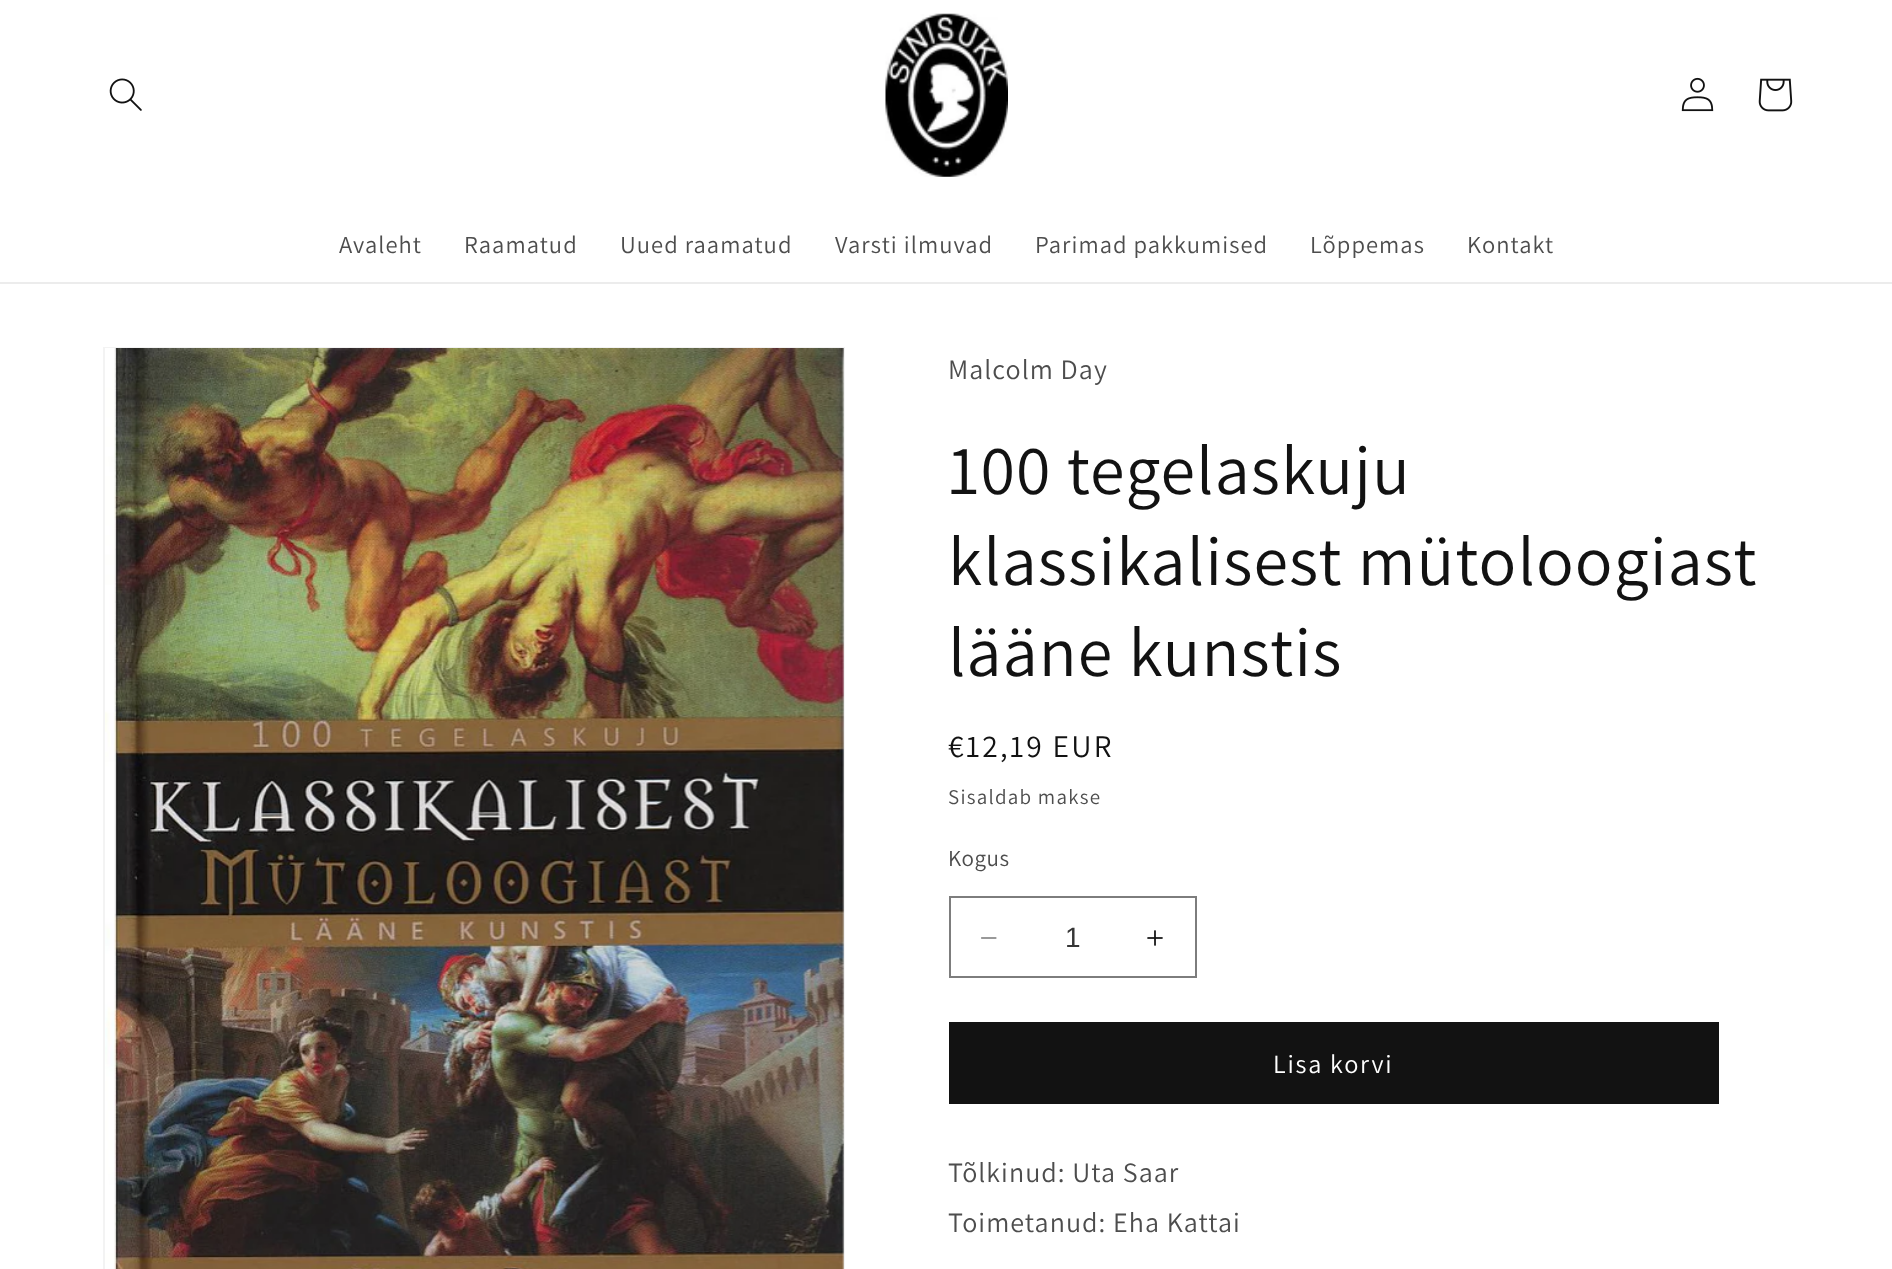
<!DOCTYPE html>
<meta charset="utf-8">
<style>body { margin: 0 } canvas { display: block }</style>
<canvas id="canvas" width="1892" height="1269"></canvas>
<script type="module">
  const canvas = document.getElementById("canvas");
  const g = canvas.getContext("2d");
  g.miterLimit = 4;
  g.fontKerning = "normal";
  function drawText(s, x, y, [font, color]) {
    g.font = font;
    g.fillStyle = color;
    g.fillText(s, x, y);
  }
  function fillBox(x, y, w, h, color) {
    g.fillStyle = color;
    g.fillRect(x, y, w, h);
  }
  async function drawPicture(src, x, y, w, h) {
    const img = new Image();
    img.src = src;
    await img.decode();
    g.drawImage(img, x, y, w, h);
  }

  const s1 = ["24.5px Assistant", "#4D4D4D"];
  const s2 = ["28px Assistant", "#4D4D4D"];
  const s3 = ["70px Assistant", "#121212"];
  const s4 = ["31.5px Assistant", "#121212"];
  const s5 = ["21px Assistant", "#4D4D4D"];
  const s6 = ["23px Assistant", "#4D4D4D"];
  const s7 = ["28px Liberation Sans", "#363636"];
  const s8 = ["26.25px Assistant", "#FFFFFF"];

  fillBox(0, 0, 1892, 1269, "#FFFFFF");
  fillBox(0, 282, 1892, 2, "#ECECEC");
  await drawPicture("pic1.png", 109, 78, 33, 33);
  await drawPicture("pic2.png", 885, 13, 123, 164);
  await drawPicture("pic3.png", 1681, 77, 33, 35);
  await drawPicture("pic4.png", 1758, 78, 35, 34);
  g.letterSpacing = "1.05px";
  drawText("Avaleht", 339, 253, s1);
  drawText("Raamatud", 464, 253, s1);
  drawText("Uued raamatud", 620, 253, s1);
  drawText("Varsti ilmuvad", 835, 253, s1);
  drawText("Parimad pakkumised", 1035, 253, s1);
  drawText("Lõppemas", 1310, 253, s1);
  drawText("Kontakt", 1467, 253, s1);
  g.strokeStyle = "#F3F3F3";
  g.lineWidth = 2;
  g.strokeRect(104, 348, 740, 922);
  await drawPicture("pic5.png", 105, 348, 739, 921);
  drawText("Malcolm Day", 948, 379, s2);
  drawText("100 tegelaskuju", 948, 494, s3);
  drawText("klassikalisest mütoloogiast", 948, 585, s3);
  drawText("lääne kunstis", 948, 676, s3);
  g.letterSpacing = "2.25px";
  drawText("€12,19 EUR", 948, 757, s4);
  g.letterSpacing = "1.25px";
  drawText("Sisaldab makse", 948, 804, s5);
  g.letterSpacing = "0.5px";
  drawText("Kogus", 948, 866, s6);
  await drawPicture("pic6.png", 981, 937, 16, 2);
  await drawPicture("pic7.png", 1147, 930, 16, 16);
  g.strokeStyle = "#7D7D7D";
  g.strokeRect(950, 897, 246, 80);
  g.letterSpacing = "0px";
  drawText("1", 1065, 947, s7);
  fillBox(949, 1022, 770, 82, "#121212");
  g.letterSpacing = "1.75px";
  drawText("Lisa korvi", 1273, 1073, s8);
  g.letterSpacing = "1.05px";
  drawText("Tõlkinud: Uta Saar", 948, 1182, s2);
  drawText("Toimetanud: Eha Kattai", 948, 1232, s2);
</script>
